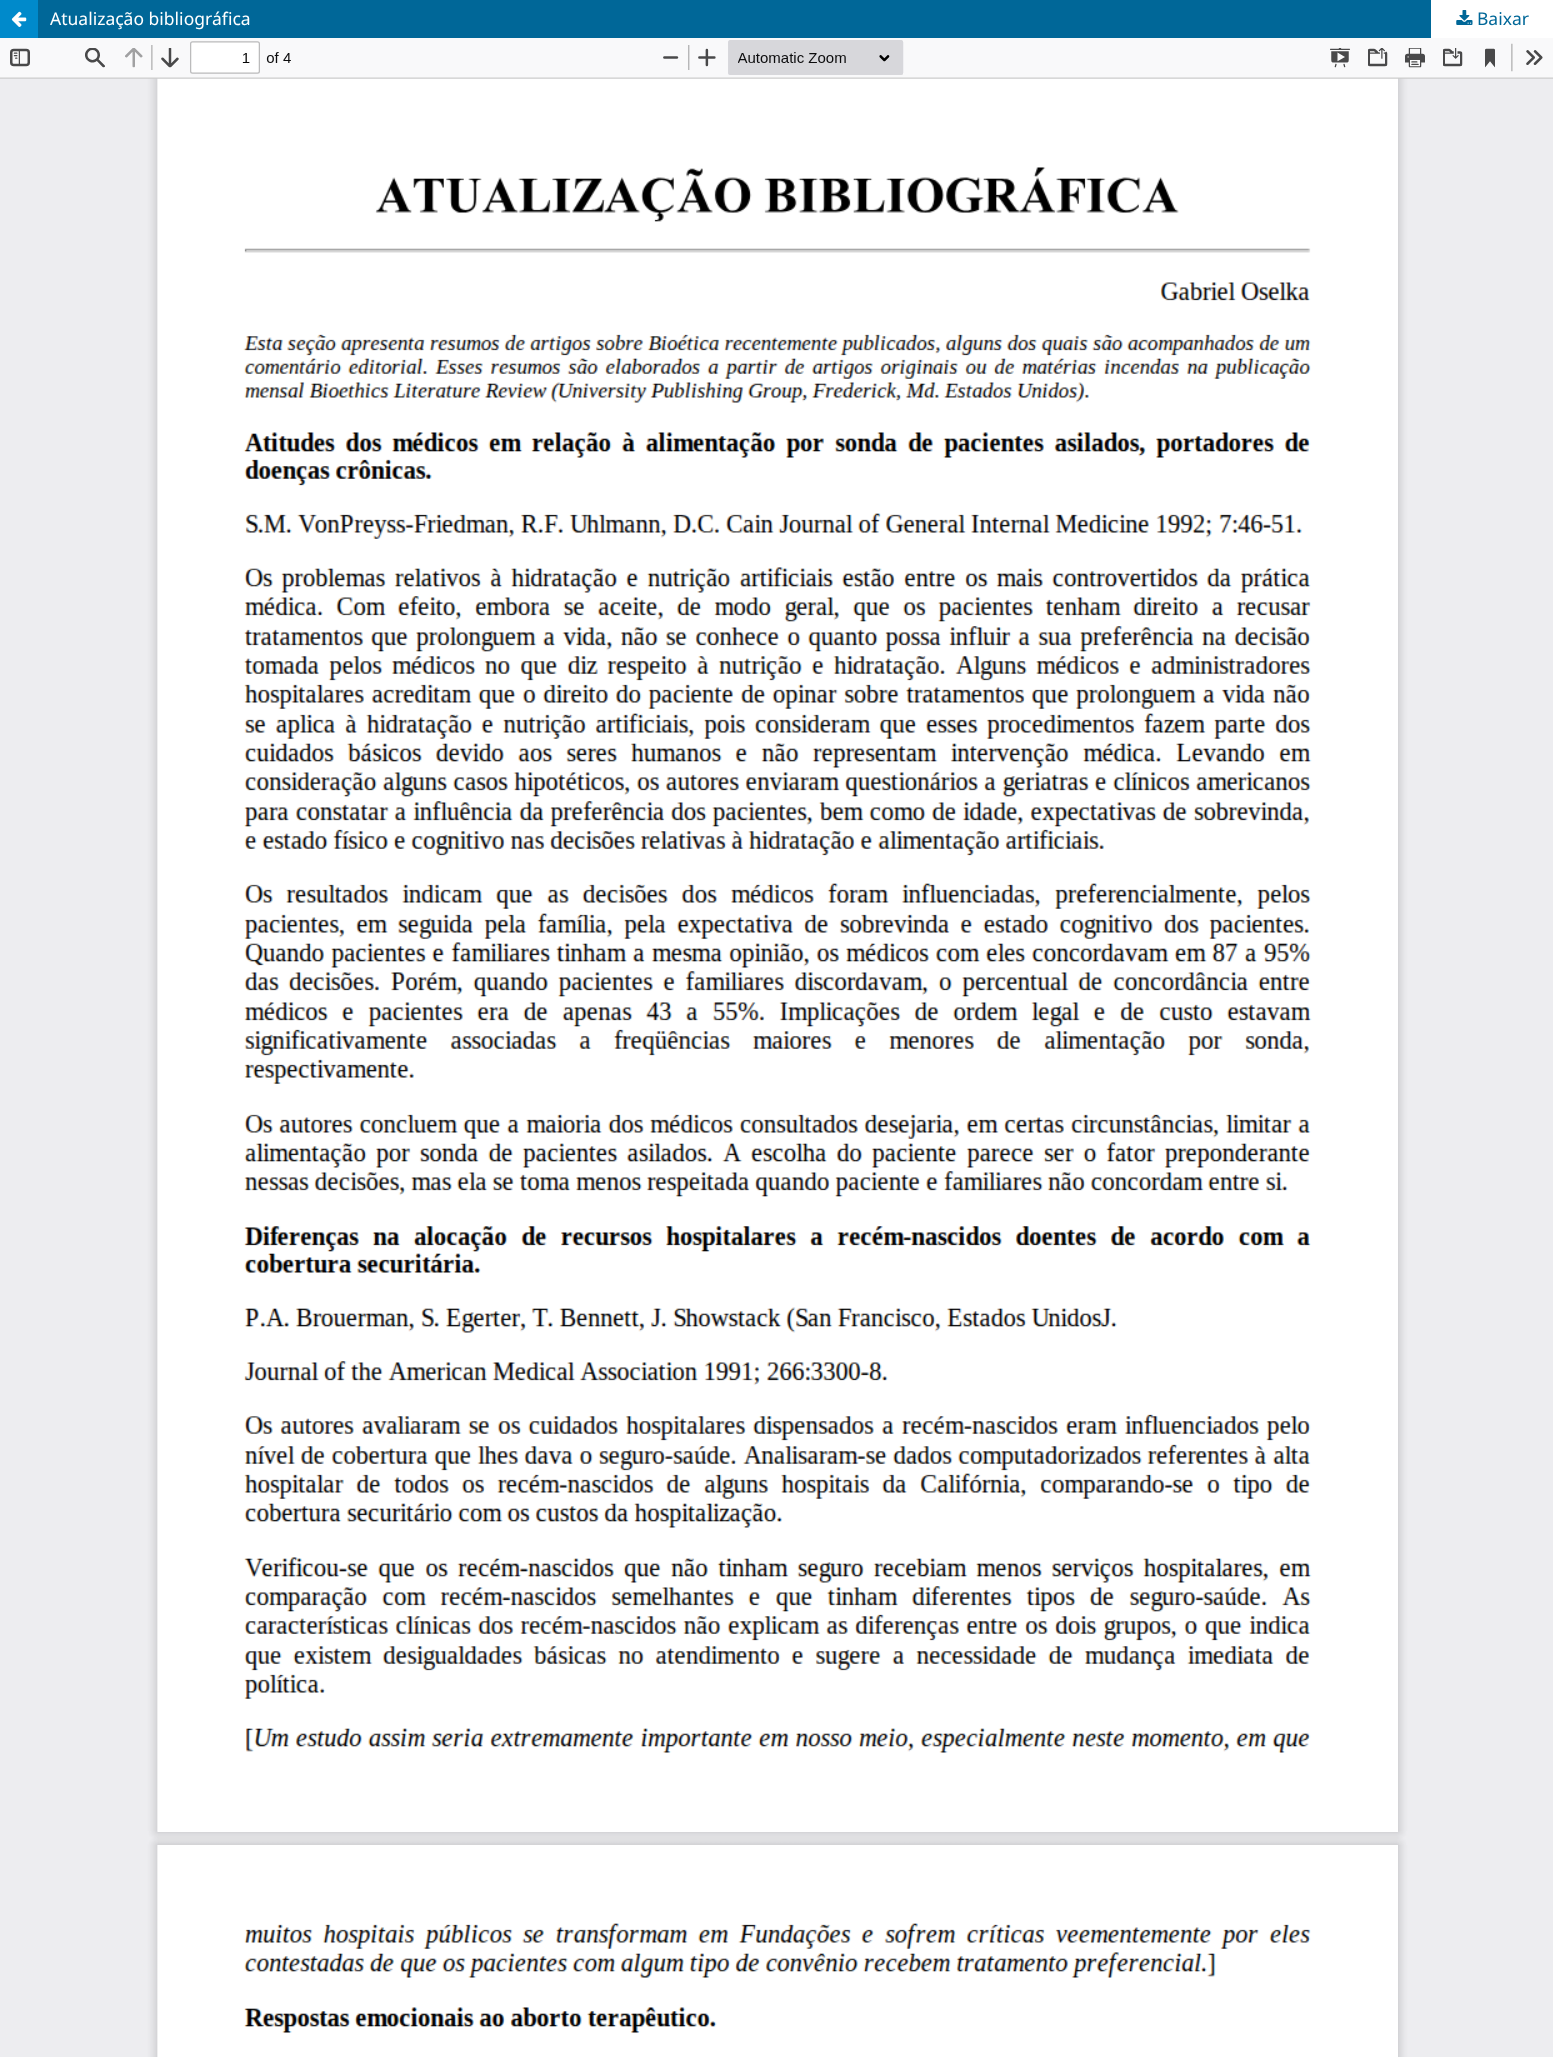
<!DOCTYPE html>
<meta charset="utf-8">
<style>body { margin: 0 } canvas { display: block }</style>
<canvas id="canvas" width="1553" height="2057"></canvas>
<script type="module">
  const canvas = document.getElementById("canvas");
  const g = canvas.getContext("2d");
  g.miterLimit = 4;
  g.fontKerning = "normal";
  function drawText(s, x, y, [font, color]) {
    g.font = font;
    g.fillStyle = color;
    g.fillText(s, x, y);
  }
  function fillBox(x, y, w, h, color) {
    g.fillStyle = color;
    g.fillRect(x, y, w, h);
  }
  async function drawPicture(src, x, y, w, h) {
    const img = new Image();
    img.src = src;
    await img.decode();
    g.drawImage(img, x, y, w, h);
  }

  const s1 = ["17.5px Noto Sans", "#FFFFFF"];
  const s2 = ["17.5px Noto Sans", "#006798"];

  fillBox(0, 0, 1553, 2057, "#FFFFFF");
  fillBox(38, 0, 1393, 38, "#006798");
  fillBox(0, 0, 38, 38, "#008ACB");
  await drawPicture("pic1.png", 11, 11, 16, 16);
  drawText("Atualização bibliográfica", 50, 25, s1);
  await drawPicture("pic2.png", 1456, 10, 17, 15);
  drawText("Baixar", 1477, 25, s2);
  await drawPicture("pic3.png", 0, 38, 1553, 2019);
</script>
